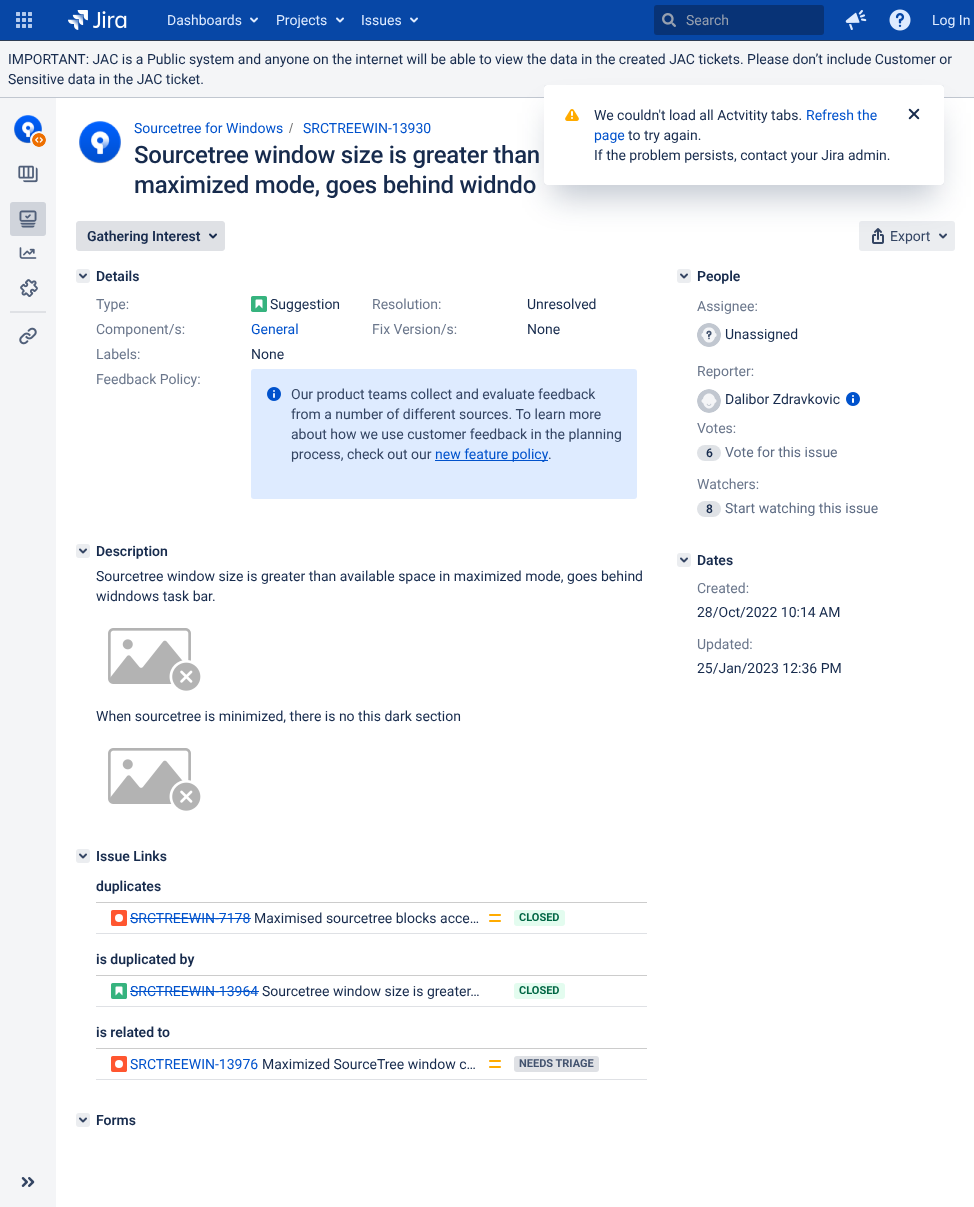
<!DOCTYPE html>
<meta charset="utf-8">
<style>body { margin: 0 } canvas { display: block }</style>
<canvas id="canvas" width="974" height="1207"></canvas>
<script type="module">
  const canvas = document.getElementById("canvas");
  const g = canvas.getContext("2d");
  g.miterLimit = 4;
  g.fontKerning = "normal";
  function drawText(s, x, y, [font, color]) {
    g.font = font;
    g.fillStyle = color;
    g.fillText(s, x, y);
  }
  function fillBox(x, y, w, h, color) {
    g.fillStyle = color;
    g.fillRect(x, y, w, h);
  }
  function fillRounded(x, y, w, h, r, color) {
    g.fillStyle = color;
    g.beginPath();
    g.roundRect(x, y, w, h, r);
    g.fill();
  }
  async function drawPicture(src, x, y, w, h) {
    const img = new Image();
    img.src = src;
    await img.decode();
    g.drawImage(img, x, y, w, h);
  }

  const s1 = ["14px Roboto", "#DEEBFF"];
  const s2 = ["14px Roboto", "#97A0AF"];
  const s3 = ["14px Roboto", "#172B4D"];
  const s4 = ["14px Roboto", "#0052CC"];
  const s5 = ["500 24px Roboto", "#172B4D"];
  const s6 = ["600 14px Roboto", "#172B4D"];
  const s7 = ["14px Roboto", "#344563"];
  const s8 = ["14px Roboto", "#6B778C"];
  const s9 = ["bold 11px Roboto", "#006644"];
  const s10 = ["bold 11px Roboto", "#42526E"];
  const s11 = ["600 12px Roboto", "#172B4D"];
  const s12 = ["14px Roboto", "#5E6C84"];

  fillBox(0, 0, 974, 1207, "#F4F5F7");
  fillBox(0, 0, 974, 40, "#0747A6");
  fillBox(0, 40, 974, 1, "#2E3D54");
  await drawPicture("pic1.png", 16, 12, 16, 16);
  await drawPicture("pic2.png", 68, 10, 59, 20);
  drawText("Dashboards", 167, 25, s1);
  await drawPicture("pic3.png", 250, 17, 8, 6);
  drawText("Projects", 276, 25, s1);
  await drawPicture("pic3.png", 336, 17, 8, 6);
  drawText("Issues", 361, 25, s1);
  await drawPicture("pic3.png", 410, 17, 8, 6);
  fillRounded(654, 5, 170, 30, 3, "#083376");
  await drawPicture("pic4.png", 662, 13, 14, 14);
  drawText("Search", 686, 25, s2);
  await drawPicture("pic5.png", 845, 10, 22, 20);
  await drawPicture("pic6.png", 889, 9, 22, 22);
  drawText("Log In", 932, 25, s1);
  fillBox(0, 97, 974, 1, "#C1C7D0");
  drawText("IMPORTANT: JAC is a Public system and anyone on the internet will be able to view the data in the created JAC tickets. Please don’t include Customer or", 8, 64, s3);
  drawText("Sensitive data in the JAC ticket.", 8, 84, s3);
  await drawPicture("pic7.png", 14, 115, 28, 29);
  g.fillStyle = "#F4F5F7";
  g.beginPath();
  g.arc(39, 140, 9, 0, Math.PI * 2);
  g.fill();
  await drawPicture("pic8.png", 32, 133, 14, 14);
  await drawPicture("pic9.png", 18, 165, 20, 18);
  fillRounded(10, 202, 36, 34, 3, "#E1E4E9");
  fillRounded(10, 202, 36, 34, 3, "rgba(9, 30, 66, 0.08)");
  await drawPicture("pic10.png", 19, 210, 18, 18);
  await drawPicture("pic11.png", 19, 247, 18, 12);
  await drawPicture("pic12.png", 20, 279, 18, 18);
  fillBox(10, 311, 36, 2, "#DFE1E5");
  await drawPicture("pic13.png", 19, 327, 18, 18);
  await drawPicture("pic14.png", 21, 1177, 14, 10);
  fillBox(56, 98, 918, 1109, "#FFFFFF");
  await drawPicture("pic15.png", 79, 121, 42, 43);
  drawText("Sourcetree for Windows", 134, 133, s4);
  g.fillStyle = "#707070";
  g.beginPath();
  g.moveTo(290, 133);
  g.lineTo(293, 123);
  g.lineTo(292, 123);
  g.lineTo(289, 133);
  g.closePath();
  g.fill();
  drawText("SRCTREEWIN-13930", 303, 133, s4);
  g.letterSpacing = "-0.25px";
  drawText("Sourcetree window size is greater than", 134, 163, s5);
  drawText("maximized mode, goes behind widndo", 134, 193, s5);
  g.fillStyle = "#DFE1E5";
  g.beginPath();
  g.roundRect(76.5, 221.5, 148, 29, 2.5);
  g.fill();
  g.strokeStyle = "#DFE1E5";
  g.stroke();
  g.letterSpacing = "0px";
  drawText("Gathering Interest", 87, 241, s6);
  await drawPicture("pic16.png", 209, 233, 8, 6);
  fillRounded(859, 221, 96, 30, 3, "#EBEDF0");
  await drawPicture("pic17.png", 872, 228, 12, 16);
  drawText("Export", 890, 241, s7);
  await drawPicture("pic18.png", 939, 233, 8, 6);
  fillRounded(76, 269, 14, 14, 3, "#EBEDF0");
  await drawPicture("pic19.png", 79, 273, 8, 6);
  drawText("Details", 96, 281, s6);
  drawText("Type:", 96, 309, s8);
  await drawPicture("pic20.png", 251, 296, 16, 16);
  drawText("Suggestion", 270, 309, s3);
  drawText("Resolution:", 372, 309, s8);
  drawText("Unresolved", 527, 309, s3);
  drawText("Component/s:", 96, 334, s8);
  drawText("General", 251, 334, s4);
  drawText("Fix Version/s:", 372, 334, s8);
  drawText("None", 527, 334, s3);
  drawText("Labels:", 96, 359, s8);
  drawText("None", 251, 359, s3);
  drawText("Feedback Policy:", 96, 384, s8);
  fillRounded(251, 369, 386, 130, 3, "#DEEBFF");
  await drawPicture("pic21.png", 267, 387, 14, 14);
  drawText("Our product teams collect and evaluate feedback", 291, 399, s7);
  drawText("from a number of different sources. To learn more", 291, 419, s7);
  drawText("about how we use customer feedback in the planning", 291, 439, s7);
  drawText("process, check out our", 291, 459, s7);
  fillBox(435, 460, 113, 1, "#0052CC");
  drawText("new feature policy", 435, 459, s4);
  drawText(".", 548, 459, s7);
  fillRounded(76, 544, 14, 14, 3, "#EBEDF0");
  await drawPicture("pic19.png", 79, 548, 8, 6);
  drawText("Description", 96, 556, s6);
  drawText("Sourcetree window size is greater than available space in maximized mode, goes behind", 96, 581, s3);
  drawText("widndows task bar.", 96, 601, s3);
  await drawPicture("pic22.png", 108, 628, 93, 63);
  drawText("When sourcetree is minimized, there is no this dark section", 96, 721, s3);
  await drawPicture("pic22.png", 108, 748, 93, 63);
  fillRounded(76, 849, 14, 14, 3, "#EBEDF0");
  await drawPicture("pic19.png", 79, 853, 8, 6);
  drawText("Issue Links", 96, 861, s6);
  drawText("duplicates", 96, 891, s6);
  fillBox(96, 902, 551, 1, "#CCCCCC");
  fillBox(96, 933, 551, 1, "#DFE1E5");
  await drawPicture("pic23.png", 111, 910, 16, 16);
  drawText("SRCTREEWIN-7178", 130, 923, s4);
  fillBox(130, 918, 121, 1, "#0052CC");
  drawText("Maximised sourcetree blocks acce…", 254, 923, s3);
  await drawPicture("pic24.png", 489, 914, 12, 8);
  fillRounded(514, 910, 51, 16, 3, "#E3FCEF");
  drawText("CLOSED", 519, 921, s9);
  drawText("is duplicated by", 96, 964, s6);
  fillBox(96, 975, 551, 1, "#CCCCCC");
  fillBox(96, 1006, 551, 1, "#DFE1E5");
  await drawPicture("pic25.png", 111, 983, 16, 16);
  drawText("SRCTREEWIN-13964", 130, 996, s4);
  fillBox(130, 991, 129, 1, "#0052CC");
  drawText("Sourcetree window size is greater…", 262, 996, s3);
  fillRounded(514, 983, 51, 16, 3, "#E3FCEF");
  drawText("CLOSED", 519, 994, s9);
  drawText("is related to", 96, 1037, s6);
  fillBox(96, 1048, 551, 1, "#CCCCCC");
  fillBox(96, 1079, 551, 1, "#DFE1E5");
  await drawPicture("pic23.png", 111, 1056, 16, 16);
  drawText("SRCTREEWIN-13976", 130, 1069, s4);
  drawText("Maximized SourceTree window c…", 262, 1069, s3);
  await drawPicture("pic24.png", 489, 1060, 12, 8);
  fillRounded(514, 1056, 85, 16, 3, "#DFE1E5");
  drawText("NEEDS TRIAGE", 519, 1067, s10);
  fillRounded(76, 1113, 14, 14, 3, "#EBEDF0");
  await drawPicture("pic19.png", 79, 1117, 8, 6);
  drawText("Forms", 96, 1125, s6);
  fillRounded(677, 269, 14, 14, 3, "#EBEDF0");
  await drawPicture("pic19.png", 680, 273, 8, 6);
  drawText("People", 697, 281, s6);
  drawText("Assignee:", 697, 311, s8);
  await drawPicture("pic26.png", 697, 323, 24, 24);
  drawText("Unassigned", 725, 339, s3);
  drawText("Reporter:", 697, 376, s8);
  await drawPicture("pic27.png", 697, 389, 24, 24);
  drawText("Dalibor Zdravkovic", 725, 404, s3);
  await drawPicture("pic28.png", 846, 392, 14, 14);
  drawText("Votes:", 697, 433, s8);
  fillRounded(697, 445, 24, 16, 8, "#DFE2E6");
  drawText("6", 706, 457, s11);
  drawText("Vote for this issue", 725, 457, s12);
  drawText("Watchers:", 697, 489, s8);
  fillRounded(697, 501, 24, 16, 8, "#DFE2E6");
  drawText("8", 706, 513, s11);
  drawText("Start watching this issue", 725, 513, s12);
  fillRounded(677, 553, 14, 14, 3, "#EBEDF0");
  await drawPicture("pic19.png", 680, 557, 8, 6);
  drawText("Dates", 697, 565, s6);
  drawText("Created:", 697, 593, s8);
  drawText("28/Oct/2022 10:14 AM", 697, 617, s3);
  drawText("Updated:", 697, 649, s8);
  drawText("25/Jan/2023 12:36 PM", 697, 673, s3);
  g.fillStyle = "rgba(9, 30, 66, 0.25)";
  g.filter = "blur(0.5px)";
  g.beginPath();
  g.roundRect(544, 85, 400, 100, 3);
  g.fill();
  g.filter = "none";
  g.filter = "blur(16px)";
  g.beginPath();
  g.rect(552, 113, 384, 84);
  g.fill();
  g.filter = "none";
  fillRounded(544, 85, 400, 100, 3, "#FFFFFF");
  await drawPicture("pic29.png", 565, 109, 14, 12);
  drawText("We couldn't load all Actvitity tabs.", 594, 120, s3);
  drawText("Refresh the", 806, 120, s4);
  await drawPicture("pic30.png", 908, 108, 12, 12);
  drawText("page", 594, 140, s4);
  drawText("to try again.", 628, 140, s3);
  drawText("If the problem persists, contact your Jira admin.", 594, 160, s3);
</script>
